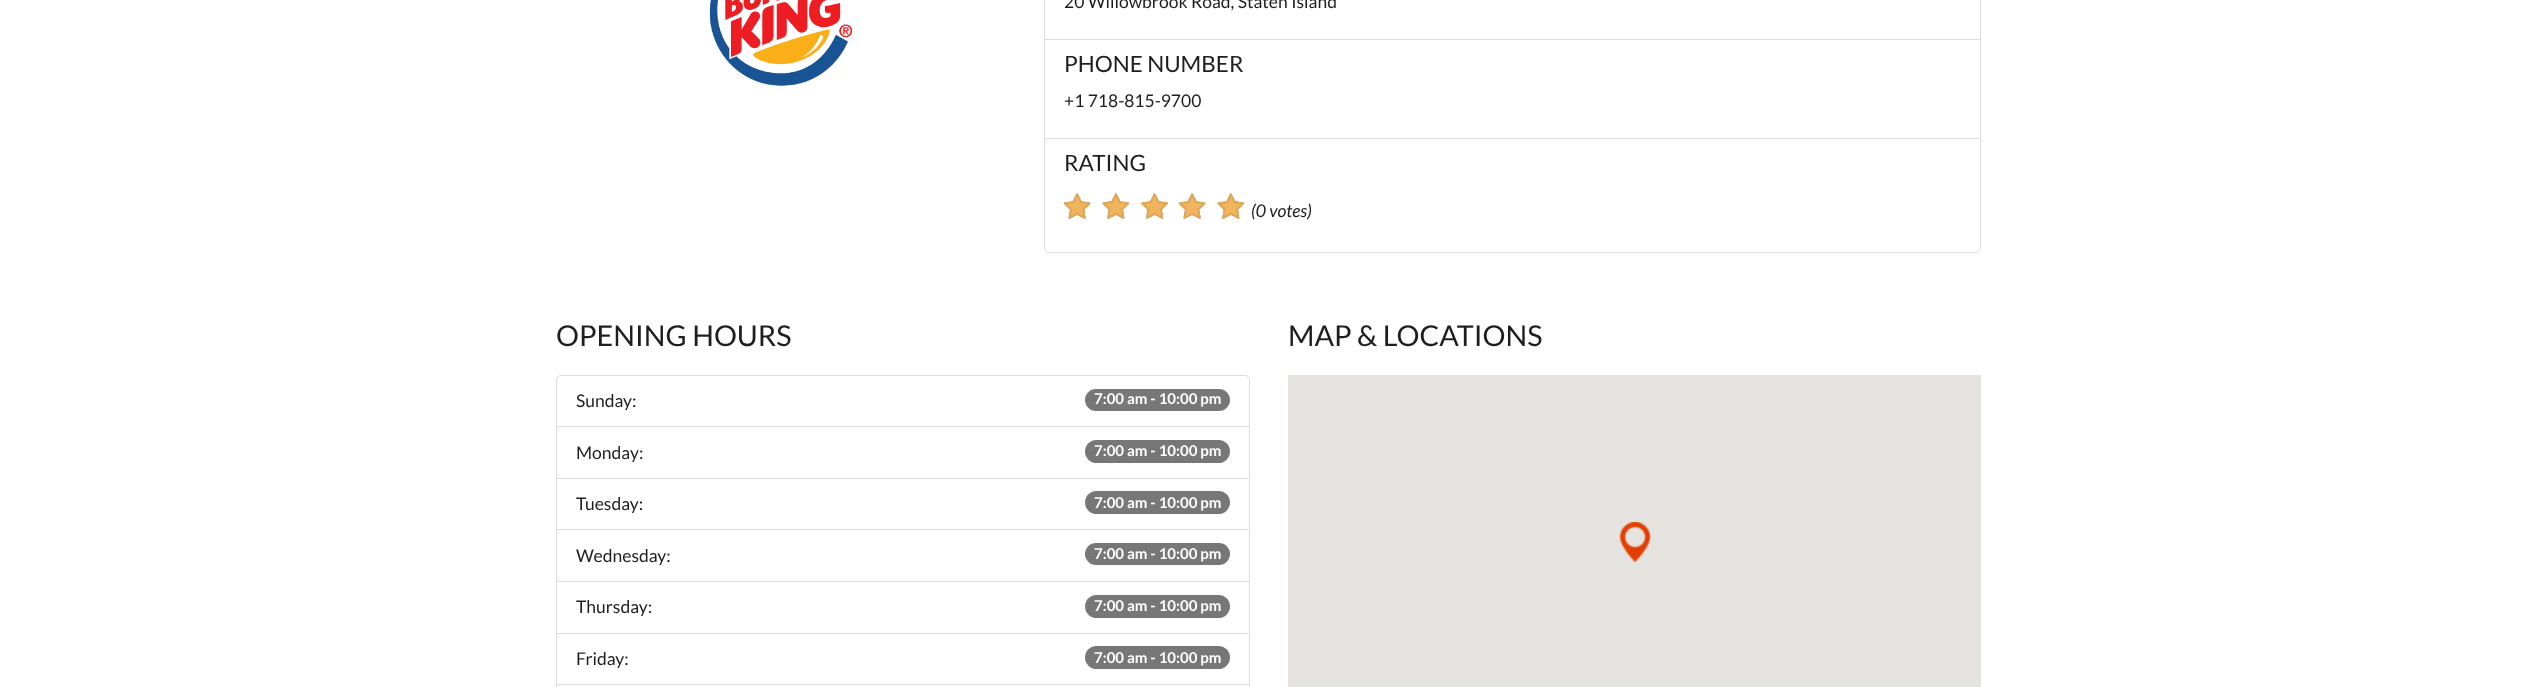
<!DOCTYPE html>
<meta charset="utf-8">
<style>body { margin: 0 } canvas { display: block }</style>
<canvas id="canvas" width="2537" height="687"></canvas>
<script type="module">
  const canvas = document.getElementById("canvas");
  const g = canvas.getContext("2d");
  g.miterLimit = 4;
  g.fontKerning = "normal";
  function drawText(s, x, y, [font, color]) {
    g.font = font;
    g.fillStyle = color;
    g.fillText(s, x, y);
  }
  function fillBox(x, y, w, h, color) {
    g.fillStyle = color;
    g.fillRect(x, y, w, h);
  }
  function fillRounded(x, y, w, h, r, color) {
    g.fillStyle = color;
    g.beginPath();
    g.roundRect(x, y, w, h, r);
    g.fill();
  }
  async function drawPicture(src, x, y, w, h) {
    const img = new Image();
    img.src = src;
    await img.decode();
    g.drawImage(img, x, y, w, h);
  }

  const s1 = ["17.5px Lato", "#1E1E1E"];
  const s2 = ["22.5px Lato", "#1E1E1E"];
  const s3 = ["italic 17.5px Lato", "#1E1E1E"];
  const s4 = ["28.75px Lato", "#1E1E1E"];
  const s5 = ["bold 15px Lato", "#FFFFFF"];

  fillBox(0, 0, 2537, 687, "#FFFFFF");
  await drawPicture("pic1.png", 709, 0, 144, 86);
  g.strokeStyle = "#DDDDDD";
  g.strokeRect(1044.5, -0.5, 936, 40);
  drawText("20 Willowbrook Road, Staten Island", 1064, 8, s1);
  g.strokeRect(1044.5, 39.5, 936, 99);
  drawText("PHONE NUMBER", 1064, 72, s2);
  drawText("+1 718-815-9700", 1064, 107, s1);
  g.fillStyle = "#FFFFFF";
  g.beginPath();
  g.roundRect(1044.5, 138.5, 936, 114, [0, 0, 4.5, 4.5]);
  g.fill();
  g.stroke();
  drawText("RATING", 1064, 171, s2);
  await drawPicture("pic2.png", 1063, 193, 28, 26);
  await drawPicture("pic3.png", 1063, 193, 28, 26);
  await drawPicture("pic4.png", 1102, 193, 28, 26);
  await drawPicture("pic5.png", 1102, 193, 28, 26);
  await drawPicture("pic6.png", 1141, 193, 27, 26);
  await drawPicture("pic7.png", 1141, 193, 27, 26);
  await drawPicture("pic2.png", 1178, 193, 28, 26);
  await drawPicture("pic3.png", 1178, 193, 28, 26);
  await drawPicture("pic4.png", 1217, 193, 28, 26);
  await drawPicture("pic8.png", 1218, 193, 27, 26);
  drawText("(0 votes)", 1251, 217, s3);
  drawText("OPENING HOURS", 556, 346, s4);
  g.beginPath();
  g.roundRect(556.5, 375.5, 693, 52, [4.5, 4.5, 0, 0]);
  g.stroke();
  drawText("Sunday:", 576, 407, s1);
  fillRounded(1085, 389, 145, 22, 11, "#777777");
  drawText("7:00 am - 10:00 pm", 1094, 404, s5);
  fillBox(557, 427, 692, 1, "#FFFFFF");
  g.strokeRect(556.5, 426.5, 693, 52);
  drawText("Monday:", 576, 459, s1);
  fillRounded(1085, 440, 145, 23, 11.5, "#777777");
  drawText("7:00 am - 10:00 pm", 1094, 456, s5);
  g.strokeRect(556.5, 478.5, 693, 51);
  drawText("Tuesday:", 576, 510, s1);
  fillRounded(1085, 491, 145, 23, 11.5, "#777777");
  drawText("7:00 am - 10:00 pm", 1094, 508, s5);
  g.strokeRect(556.5, 529.5, 693, 53);
  drawText("Wednesday:", 576, 562, s1);
  fillRounded(1085, 543, 145, 22, 11, "#777777");
  drawText("7:00 am - 10:00 pm", 1094, 559, s5);
  fillBox(557, 582, 692, 1, "#FFFFFF");
  g.strokeRect(556.5, 581.5, 693, 52);
  drawText("Thursday:", 576, 613, s1);
  fillRounded(1085, 595, 145, 23, 11.5, "#777777");
  drawText("7:00 am - 10:00 pm", 1094, 611, s5);
  g.strokeRect(556.5, 633.5, 693, 51);
  drawText("Friday:", 576, 665, s1);
  fillRounded(1085, 646, 145, 23, 11.5, "#777777");
  drawText("7:00 am - 10:00 pm", 1094, 663, s5);
  g.strokeRect(556.5, 684.5, 693, 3);
  drawText("MAP & LOCATIONS", 1288, 346, s4);
  fillBox(1288, 375, 693, 312, "#E5E3DF");
  await drawPicture("pic9.png", 1619, 522, 33, 40);
</script>
